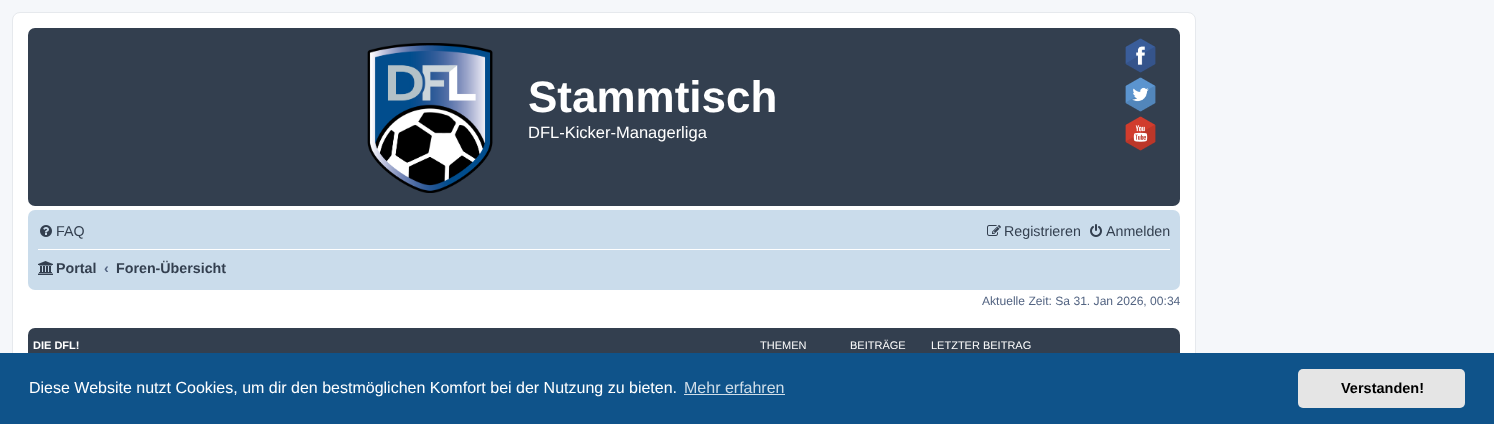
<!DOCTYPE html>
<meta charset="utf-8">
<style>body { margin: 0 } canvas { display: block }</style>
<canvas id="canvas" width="1494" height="424"></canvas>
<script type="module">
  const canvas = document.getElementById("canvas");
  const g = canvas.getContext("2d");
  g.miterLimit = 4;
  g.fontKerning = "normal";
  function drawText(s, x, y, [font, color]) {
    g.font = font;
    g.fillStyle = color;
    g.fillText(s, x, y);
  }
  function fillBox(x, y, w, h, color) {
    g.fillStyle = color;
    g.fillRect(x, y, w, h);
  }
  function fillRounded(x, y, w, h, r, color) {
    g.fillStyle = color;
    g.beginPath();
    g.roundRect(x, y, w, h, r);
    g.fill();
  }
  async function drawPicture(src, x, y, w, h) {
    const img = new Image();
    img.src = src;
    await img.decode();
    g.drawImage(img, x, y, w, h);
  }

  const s1 = ["bold 44px Liberation Sans", "#FFFFFF"];
  const s2 = ["16.5px Liberation Sans", "#FFFFFF"];
  const s3 = ["14.25px Liberation Sans", "#333F4F"];
  const s4 = ["bold 14.25px Liberation Sans", "#333F4F"];
  const s5 = ["bold 14.25px Liberation Sans", "#536482"];
  const s6 = ["12.1px Liberation Sans", "#536482"];
  const s7 = ["bold 11px Liberation Sans", "#FFFFFF"];
  const s8 = ["11px Liberation Sans", "#FFFFFF"];
  const s9 = ["16px Liberation Sans", "#FFFFFF"];
  const s10 = ["16px Liberation Sans", "#CFDDE8"];
  const s11 = ["bold 14.5px Liberation Sans", "#000000"];

  fillBox(0, 0, 1494, 424, "#F5F7FA");
  g.fillStyle = "#FFFFFF";
  g.beginPath();
  g.roundRect(12.5, 12.5, 1183, 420, 7.5);
  g.fill();
  g.strokeStyle = "#E6E9ED";
  g.stroke();
  fillRounded(28, 28, 1152, 178, 7, "#333F4F");
  await drawPicture("pic1.png", 367, 43, 126, 150);
  drawText("Stammtisch", 528, 112, s1);
  drawText("DFL-Kicker-Managerliga", 528, 138, s2);
  await drawPicture("pic2.png", 1125, 38, 31, 35);
  await drawPicture("pic3.png", 1125, 77, 31, 35);
  await drawPicture("pic4.png", 1125, 116, 31, 35);
  fillRounded(28, 210, 1152, 80, 7, "#CADCEB");
  await drawPicture("pic5.png", 40, 225, 12, 12);
  drawText("FAQ", 56, 236, s3);
  await drawPicture("pic6.png", 987, 225, 14, 11);
  drawText("Registrieren", 1004, 236, s3);
  await drawPicture("pic7.png", 1090, 224, 12, 13);
  drawText("Anmelden", 1106, 236, s3);
  fillBox(38, 249, 1132, 1, "#FFFFFF");
  await drawPicture("pic8.png", 38, 261, 15, 14);
  drawText("Portal", 56, 273, s4);
  drawText("‹", 104, 273, s5);
  drawText("Foren-Übersicht", 116, 273, s4);
  drawText("Aktuelle Zeit: Sa 31. Jan 2026, 00:34", 982, 305, s6);
  fillRounded(28, 328, 1152, 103, 7, "#333F4F");
  drawText("DIE DFL!", 33, 349, s7);
  drawText("THEMEN", 760, 349, s8);
  drawText("BEITRÄGE", 850, 349, s8);
  drawText("LETZTER BEITRAG", 931, 349, s8);
  fillBox(0, 353, 1494, 71, "#0F538A");
  drawText("Diese Website nutzt Cookies, um dir den bestmöglichen Komfort bei der Nutzung zu bieten.", 29, 393, s9);
  drawText("Mehr erfahren", 684, 393, s10);
  fillBox(684, 394, 101, 1, "#CFDDE8");
  fillRounded(1298, 369, 167, 39, 5, "#E5E5E5");
  drawText("Verstanden!", 1341, 393, s11);
</script>
